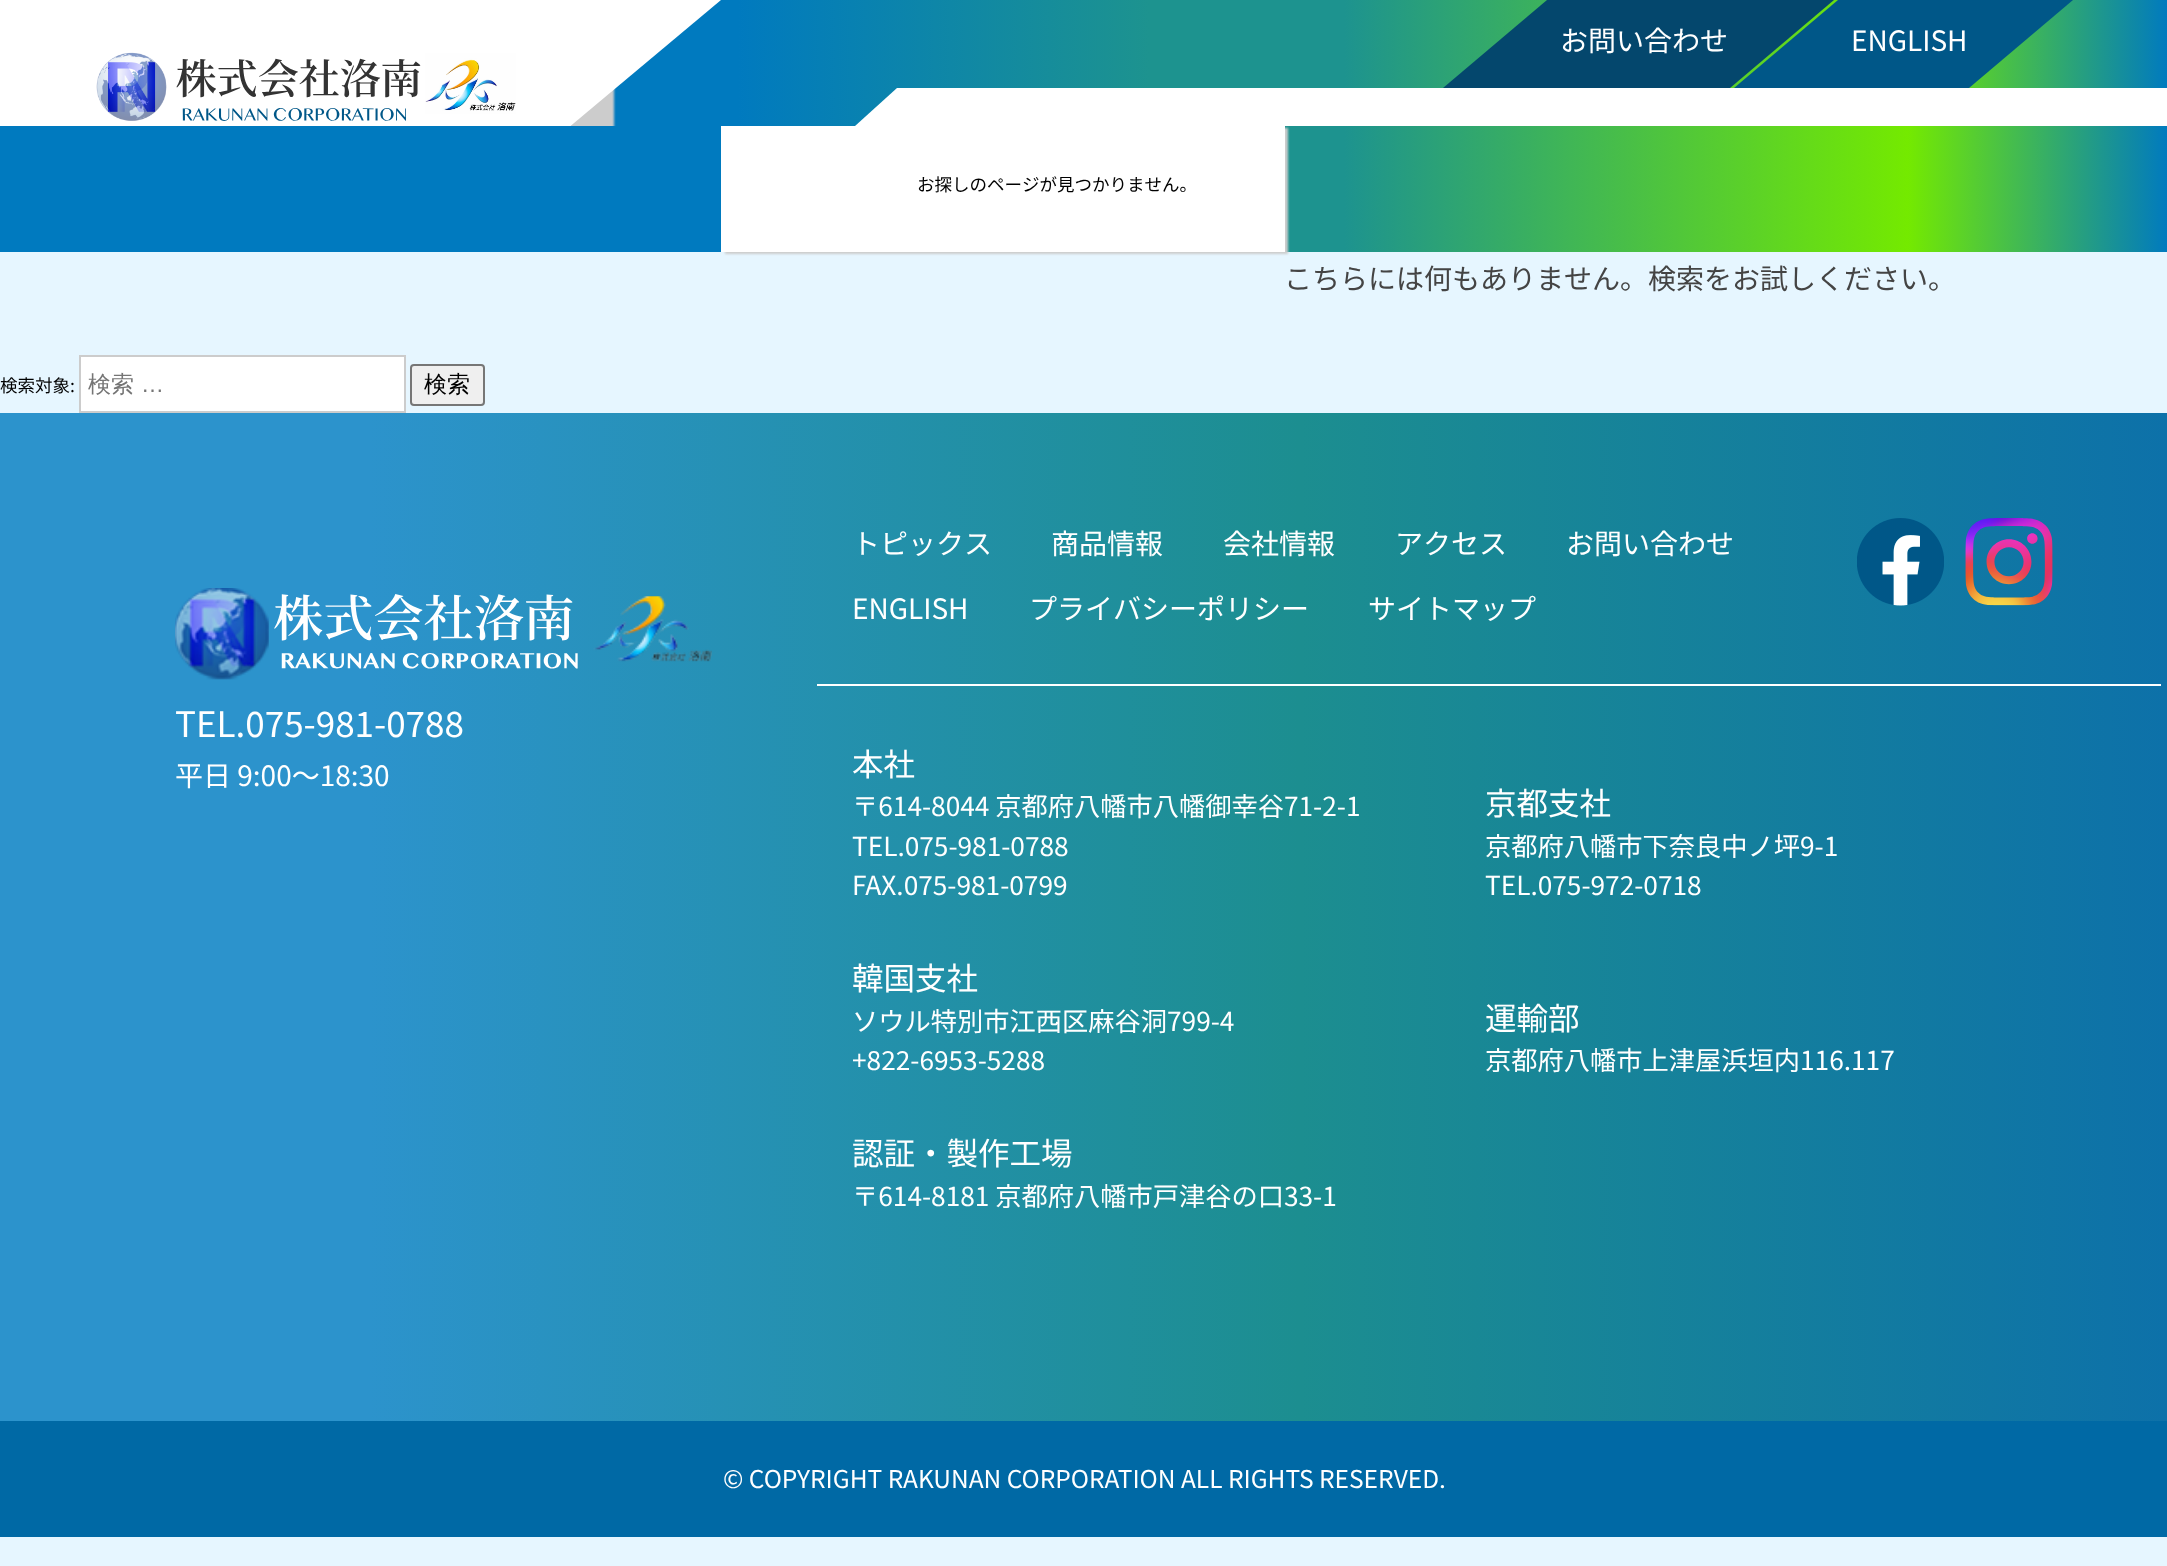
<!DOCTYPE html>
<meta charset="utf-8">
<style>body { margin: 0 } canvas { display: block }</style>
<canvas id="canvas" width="2167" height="1566"></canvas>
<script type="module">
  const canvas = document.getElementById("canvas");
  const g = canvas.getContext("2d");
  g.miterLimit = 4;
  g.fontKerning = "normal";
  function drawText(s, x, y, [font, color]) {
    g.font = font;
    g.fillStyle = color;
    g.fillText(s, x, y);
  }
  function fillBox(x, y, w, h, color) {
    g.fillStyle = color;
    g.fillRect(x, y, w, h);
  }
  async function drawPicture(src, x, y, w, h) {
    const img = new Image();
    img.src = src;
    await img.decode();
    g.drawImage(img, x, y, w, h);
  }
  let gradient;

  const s1 = ["28px Noto Sans JP", "#FFFFFF"];
  const s2 = ["17.5px Noto Sans JP", "#000000"];
  const s3 = ["28px Noto Sans JP", "#444444"];
  const s4 = ["500 23px WenQuanYi Zen Hei", "#757575"];
  const s5 = ["23px Liberation Sans", "#757575"];
  const s6 = ["500 23px WenQuanYi Zen Hei", "#000000"];
  const s7 = ["35px Noto Sans JP", "#FFFFFF"];
  const s8 = ["31.5px Noto Sans JP", "#FFFFFF"];
  const s9 = ["26.25px Noto Sans JP", "#FFFFFF"];
  const s10 = ["24.5px Noto Sans JP", "#FFFFFF"];

  fillBox(0, 0, 2167, 1566, "#E6F6FF");
  gradient = g.createLinearGradient(0, 63, 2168, 63);
  gradient.addColorStop(0, "#007ABF");
  gradient.addColorStop(0.34, "#007ABF");
  gradient.addColorStop(0.53, "#1D938F");
  gradient.addColorStop(0.62, "#1D938F");
  gradient.addColorStop(0.88, "#74EA00");
  gradient.addColorStop(1, "#007ABF");
  g.fillStyle = gradient;
  g.fillRect(570, 0, 1597, 126);
  g.fillStyle = "#CCCCCC";
  g.filter = "blur(1px)";
  g.beginPath();
  g.rect(-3, 2, 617, 185);
  g.fill();
  g.filter = "none";
  g.fillStyle = "#FFFFFF";
  g.beginPath();
  g.moveTo(0, 0);
  g.lineTo(721, 0);
  g.lineTo(500, 185);
  g.lineTo(-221, 185);
  g.closePath();
  g.fill();
  await drawPicture("pic1.png", 96, 52, 420, 69);
  g.fillStyle = "#04476D";
  g.beginPath();
  g.moveTo(1547, 0);
  g.lineTo(1834, 0);
  g.lineTo(1730, 88);
  g.lineTo(1443, 88);
  g.closePath();
  g.fill();
  drawText("お問い合わせ", 1560, 51, s1);
  g.fillStyle = "#005788";
  g.beginPath();
  g.moveTo(1838, 0);
  g.lineTo(2073, 0);
  g.lineTo(1969, 88);
  g.lineTo(1734, 88);
  g.closePath();
  g.fill();
  drawText("ENGLISH", 1851, 51, s1);
  g.beginPath();
  g.moveTo(781, 193);
  g.lineTo(897, 88);
  g.lineTo(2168, 88);
  g.lineTo(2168, 193);
  g.closePath();
  g.fill();
  gradient = g.createLinearGradient(0, 189, 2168, 189);
  gradient.addColorStop(0, "#007ABF");
  gradient.addColorStop(0.34, "#007ABF");
  gradient.addColorStop(0.53, "#1D938F");
  gradient.addColorStop(0.62, "#1D938F");
  gradient.addColorStop(0.88, "#74EA00");
  gradient.addColorStop(1, "#007ABF");
  g.fillStyle = gradient;
  g.fillRect(0, 126, 2167, 126);
  g.fillStyle = "#CCCCCC";
  g.filter = "blur(1px)";
  g.beginPath();
  g.rect(725, 128, 563, 126);
  g.fill();
  g.filter = "none";
  fillBox(721, 126, 564, 126, "#FFFFFF");
  drawText("お探しのページが見つかりません。", 917, 191, s2);
  drawText("こちらには何もありません。検索をお試しください。", 1284, 289, s3);
  drawText("検索対象:", 0, 392, s2);
  g.fillStyle = "#FFFFFF";
  g.beginPath();
  g.rect(80, 356, 325, 56);
  g.fill();
  g.strokeStyle = "#CCCCCC";
  g.lineWidth = 2;
  g.stroke();
  drawText("検索", 88, 392, s4);
  drawText("…", 141, 392, s5);
  g.fillStyle = "#EFEFEF";
  g.beginPath();
  g.roundRect(411, 365, 73, 40, 3);
  g.fill();
  g.strokeStyle = "#767676";
  g.stroke();
  drawText("検索", 424, 392, s6);
  gradient = g.createLinearGradient(0, 975, 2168, 975);
  gradient.addColorStop(0.17, "#2C93CC");
  gradient.addColorStop(0.6, "#1C8E90");
  gradient.addColorStop(1, "#0D71A9");
  g.fillStyle = gradient;
  g.fillRect(0, 413, 2167, 1008);
  await drawPicture("pic2.png", 175, 588, 537, 92);
  drawText("TEL.075-981-0788", 175, 737, s7);
  drawText("平日 9:00〜18:30", 175, 786, s1);
  fillBox(817, 684, 1344, 2, "#FFFFFF");
  drawText("トピックス", 852, 554, s1);
  drawText("商品情報", 1051, 554, s1);
  drawText("会社情報", 1223, 554, s1);
  drawText("アクセス", 1395, 554, s1);
  drawText("お問い合わせ", 1566, 554, s1);
  await drawPicture("pic3.png", 1857, 518, 87, 88);
  await drawPicture("pic4.png", 1965, 518, 88, 88);
  drawText("ENGLISH", 852, 619, s1);
  drawText("プライバシーポリシー", 1029, 619, s1);
  drawText("サイトマップ", 1368, 619, s1);
  drawText("本社", 852, 776, s8);
  drawText("〒614-8044 京都府八幡市八幡御幸谷71-2-1", 852, 816, s9);
  drawText("TEL.075-981-0788", 852, 856, s9);
  drawText("FAX.075-981-0799", 852, 895, s9);
  drawText("京都支社", 1485, 815, s8);
  drawText("京都府八幡市下奈良中ノ坪9-1", 1485, 856, s9);
  drawText("TEL.075-972-0718", 1485, 895, s9);
  drawText("韓国支社", 852, 990, s8);
  drawText("ソウル特別市江西区麻谷洞799-4", 852, 1031, s9);
  drawText("+822-6953-5288", 852, 1070, s9);
  drawText("運輸部", 1485, 1030, s8);
  drawText("京都府八幡市上津屋浜垣内116.117", 1485, 1070, s9);
  drawText("認証・製作工場", 852, 1165, s8);
  drawText("〒614-8181 京都府八幡市戸津谷の口33-1", 852, 1206, s9);
  fillBox(0, 1421, 2167, 116, "#0069A5");
  drawText("© COPYRIGHT RAKUNAN CORPORATION ALL RIGHTS RESERVED.", 723, 1488, s10);
</script>
